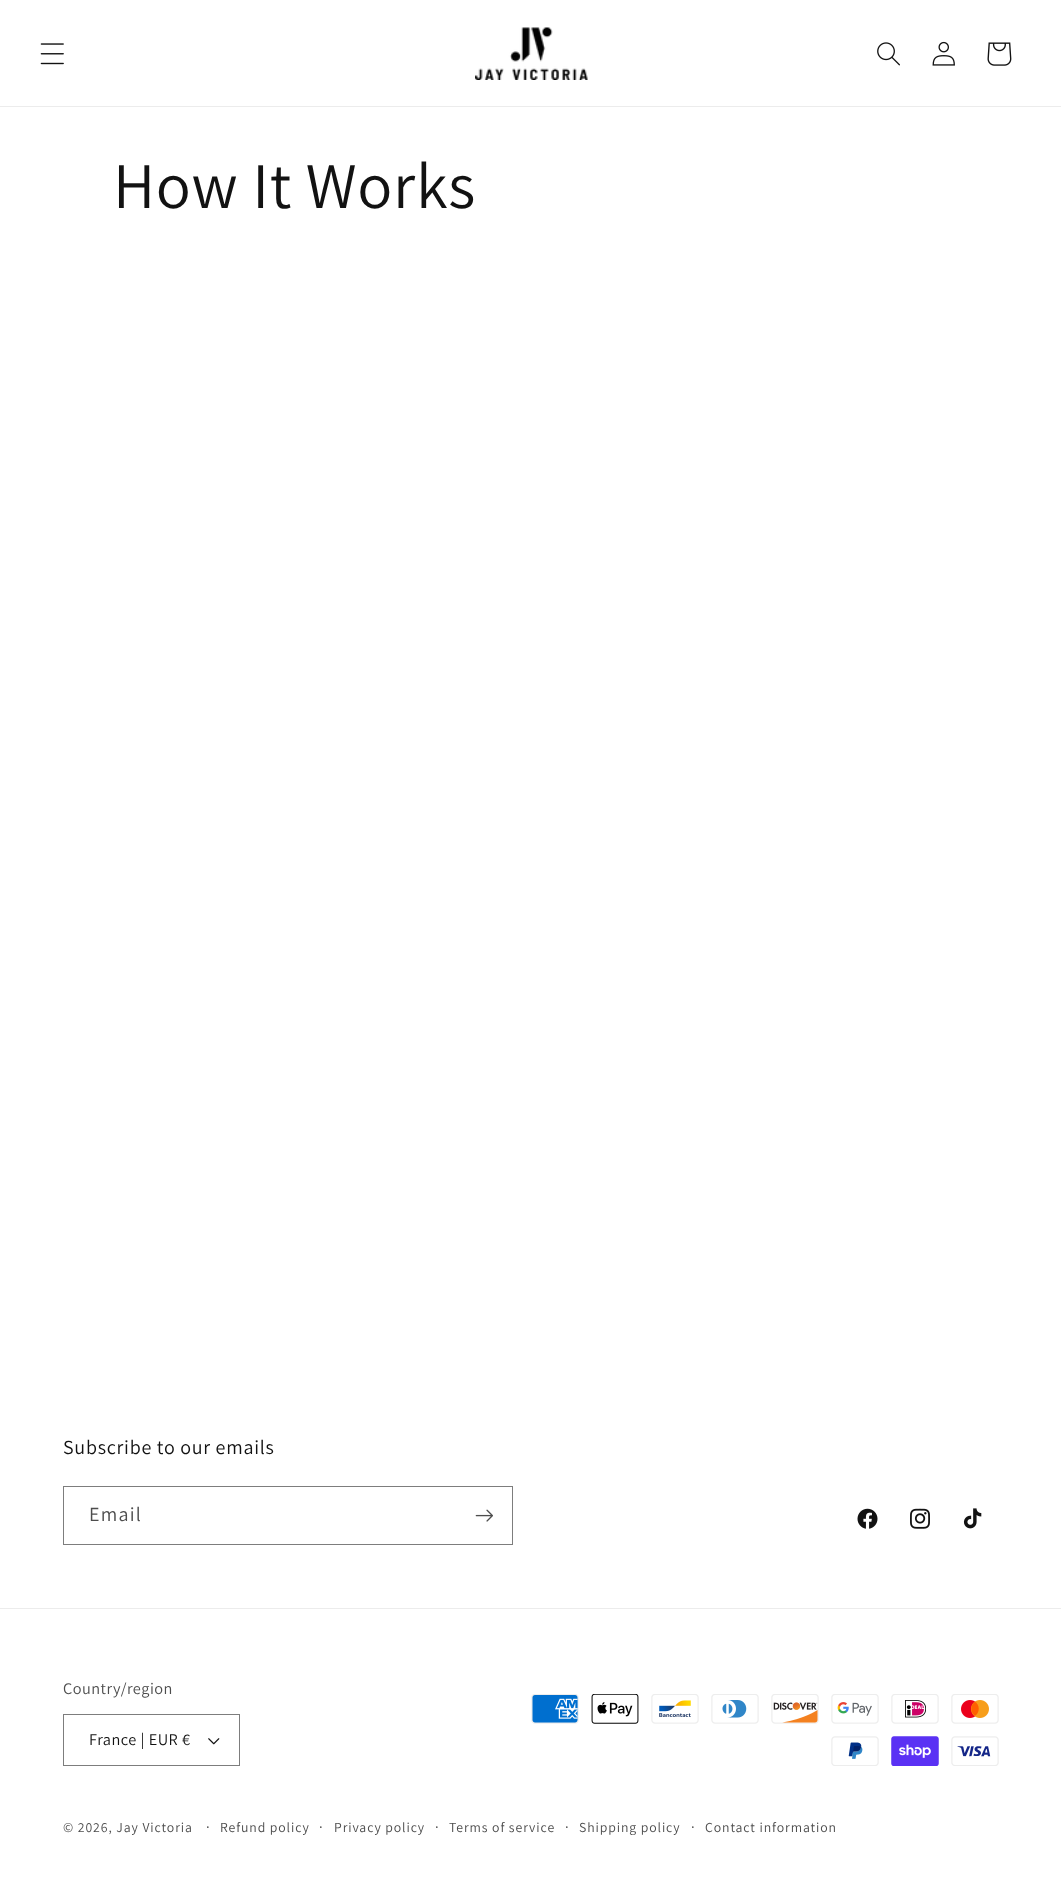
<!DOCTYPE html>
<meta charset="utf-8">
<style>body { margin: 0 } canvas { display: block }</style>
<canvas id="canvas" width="1061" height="1885"></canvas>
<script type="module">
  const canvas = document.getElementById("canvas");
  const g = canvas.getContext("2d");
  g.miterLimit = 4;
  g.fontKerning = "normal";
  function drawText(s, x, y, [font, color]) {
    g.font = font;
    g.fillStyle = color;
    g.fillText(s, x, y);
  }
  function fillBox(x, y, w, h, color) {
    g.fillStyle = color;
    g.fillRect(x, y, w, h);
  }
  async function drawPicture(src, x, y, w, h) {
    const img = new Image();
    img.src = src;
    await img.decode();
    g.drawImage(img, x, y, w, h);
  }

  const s1 = ["65px Assistant", "#121212"];
  const s2 = ["20px Assistant", "#121212"];
  const s3 = ["20px Assistant", "#4D4D4D"];
  const s4 = ["16.25px Assistant", "#4D4D4D"];
  const s5 = ["16.25px Assistant", "#121212"];
  const s6 = ["13.75px Assistant", "#4D4D4D"];
  const s7 = ["15px Assistant", "#4D4D4D"];

  fillBox(0, 0, 1061, 1885, "#FFFFFF");
  fillBox(0, 106, 1061, 1, "#ECECEC");
  await drawPicture("pic1.png", 40, 43, 24, 22);
  await drawPicture("pic2.png", 475, 27, 113, 53);
  await drawPicture("pic3.png", 877, 42, 23, 24);
  await drawPicture("pic4.png", 932, 41, 23, 25);
  await drawPicture("pic5.png", 987, 42, 25, 24);
  g.letterSpacing = "0.75px";
  drawText("How It Works", 113, 208, s1);
  drawText("Subscribe to our emails", 63, 1454, s2);
  g.strokeStyle = "#7D7D7D";
  g.strokeRect(63.5, 1486.5, 449, 58);
  g.letterSpacing = "1.25px";
  drawText("Email", 89, 1521, s3);
  await drawPicture("pic6.png", 475, 1509, 18, 13);
  await drawPicture("pic7.png", 857, 1508, 21, 21);
  await drawPicture("pic8.png", 910, 1508, 20, 21);
  await drawPicture("pic9.png", 963, 1508, 19, 21);
  fillBox(0, 1608, 1061, 1, "#ECECEC");
  g.letterSpacing = "0.5px";
  drawText("Country/region", 63, 1694, s4);
  await drawPicture("pic10.png", 208, 1738, 12, 7);
  g.strokeRect(63.5, 1714.5, 176, 51);
  drawText("France | EUR €", 89, 1745, s5);
  await drawPicture("pic11.png", 531, 1694, 48, 30);
  await drawPicture("pic12.png", 591, 1694, 48, 30);
  await drawPicture("pic13.png", 651, 1694, 48, 30);
  await drawPicture("pic14.png", 711, 1694, 48, 30);
  await drawPicture("pic15.png", 771, 1694, 48, 30);
  await drawPicture("pic16.png", 831, 1694, 48, 30);
  await drawPicture("pic17.png", 891, 1694, 48, 30);
  await drawPicture("pic18.png", 951, 1694, 48, 30);
  await drawPicture("pic19.png", 831, 1736, 48, 30);
  await drawPicture("pic20.png", 891, 1736, 48, 30);
  await drawPicture("pic21.png", 951, 1736, 48, 30);
  g.letterSpacing = "0.9px";
  drawText("© 2026, Jay Victoria", 63, 1832, s6);
  drawText("·", 206, 1832, s7);
  drawText("Refund policy", 220, 1832, s6);
  drawText("·", 319, 1832, s7);
  drawText("Privacy policy", 334, 1832, s6);
  drawText("·", 435, 1832, s7);
  drawText("Terms of service", 449, 1832, s6);
  drawText("·", 565, 1832, s7);
  drawText("Shipping policy", 579, 1832, s6);
  drawText("·", 691, 1832, s7);
  drawText("Contact information", 705, 1832, s6);
</script>
